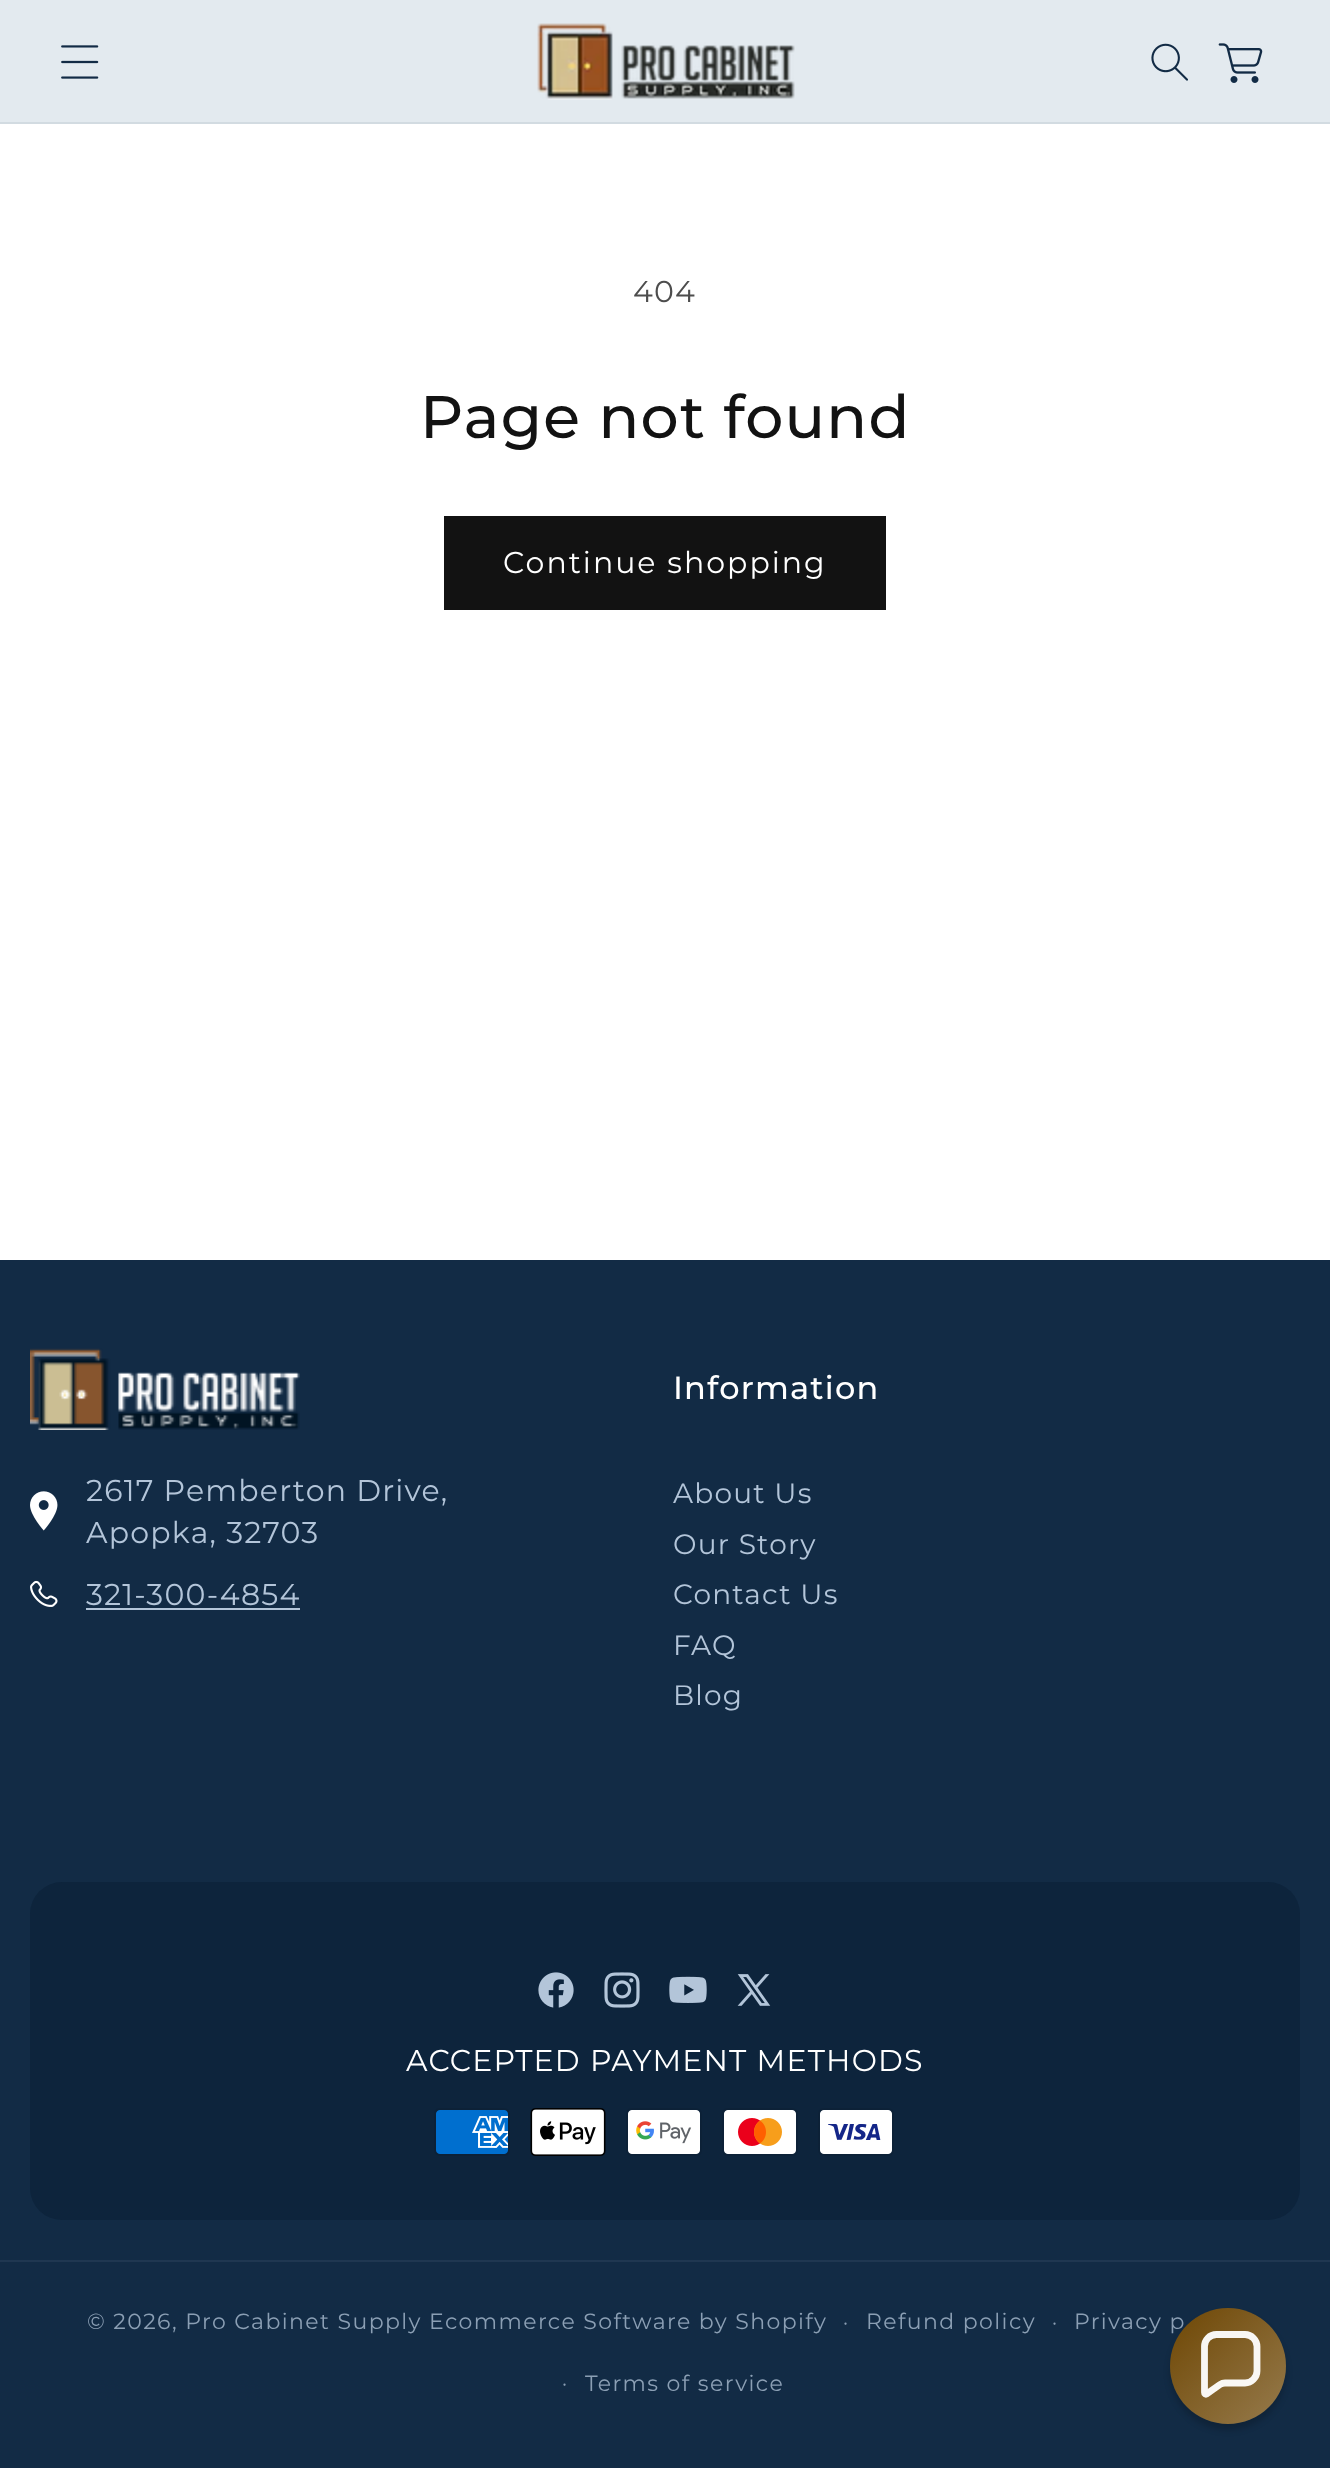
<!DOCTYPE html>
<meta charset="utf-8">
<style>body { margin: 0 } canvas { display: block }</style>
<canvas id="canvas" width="1330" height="2468"></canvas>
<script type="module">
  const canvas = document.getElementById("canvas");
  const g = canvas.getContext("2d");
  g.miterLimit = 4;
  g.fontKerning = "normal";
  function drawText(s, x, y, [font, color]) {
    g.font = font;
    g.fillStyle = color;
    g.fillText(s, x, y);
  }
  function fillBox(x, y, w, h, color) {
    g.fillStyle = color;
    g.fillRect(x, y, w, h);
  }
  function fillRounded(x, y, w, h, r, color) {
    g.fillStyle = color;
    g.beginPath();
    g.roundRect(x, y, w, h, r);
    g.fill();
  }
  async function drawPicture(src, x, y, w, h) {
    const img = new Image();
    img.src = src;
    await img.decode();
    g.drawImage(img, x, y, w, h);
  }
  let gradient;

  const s1 = ["30px Montserrat", "#4D4D4D"];
  const s2 = ["500 60px Montserrat", "#121212"];
  const s3 = ["30px Montserrat", "#FFFFFF"];
  const s4 = ["30px Montserrat", "#B3C5D9"];
  const s5 = ["500 32px Montserrat", "#FFFFFF"];
  const s6 = ["28px Montserrat", "#B3C5D9"];
  const s7 = ["22px Montserrat", "#8B9FB4"];
  const s8 = ["20px Montserrat", "#8B9FB4"];

  fillBox(0, 0, 1330, 2468, "#FFFFFF");
  fillBox(0, 0, 1330, 122, "#E3EAEF");
  fillBox(0, 122, 1330, 2, "#D2DBE1");
  await drawPicture("pic1.png", 61, 45, 38, 34);
  await drawPicture("pic2.png", 537, 23, 258, 77);
  await drawPicture("pic3.png", 1151, 43, 37, 38);
  await drawPicture("pic4.png", 1218, 43, 45, 40);
  g.letterSpacing = "1.2px";
  drawText("404", 633, 302, s1);
  drawText("Page not found", 420, 438, s2);
  fillBox(444, 516, 442, 94, "#121212");
  g.letterSpacing = "2px";
  drawText("Continue shopping", 503, 573, s3);
  fillBox(0, 1260, 1330, 1208, "#122B45");
  await drawPicture("pic5.png", 30, 1348, 270, 82);
  await drawPicture("pic6.png", 30, 1491, 28, 40);
  g.letterSpacing = "1.2px";
  drawText("2617 Pemberton Drive,", 86, 1501, s4);
  drawText("Apopka, 32703", 86, 1543, s4);
  await drawPicture("pic7.png", 30, 1580, 28, 27);
  drawText("321-300-4854", 86, 1605, s4);
  fillBox(86, 1608, 214, 2, "#B3C5D9");
  drawText("Information", 673, 1399, s5);
  drawText("About Us", 673, 1503, s6);
  drawText("Our Story", 673, 1554, s6);
  drawText("Contact Us", 673, 1604, s6);
  drawText("FAQ", 673, 1655, s6);
  drawText("Blog", 673, 1705, s6);
  fillRounded(30, 1882, 1270, 338, 32, "#0D243C");
  await drawPicture("pic8.png", 538, 1972, 36, 36);
  await drawPicture("pic9.png", 604, 1972, 36, 36);
  await drawPicture("pic10.png", 669, 1976, 38, 27);
  await drawPicture("pic11.png", 737, 1974, 34, 32);
  drawText("ACCEPTED PAYMENT METHODS", 406, 2071, s3);
  await drawPicture("pic12.png", 434, 2108, 76, 48);
  await drawPicture("pic13.png", 530, 2108, 76, 48);
  await drawPicture("pic14.png", 626, 2108, 76, 48);
  await drawPicture("pic15.png", 722, 2108, 76, 48);
  await drawPicture("pic16.png", 818, 2108, 76, 48);
  fillBox(0, 2260, 1330, 2, "#1F3751");
  g.letterSpacing = "1.4px";
  drawText("© 2026, Pro Cabinet Supply", 87, 2329, s7);
  drawText("Ecommerce Software by Shopify", 429, 2329, s7);
  drawText("·", 843, 2329, s8);
  drawText("Refund policy", 866, 2329, s7);
  drawText("·", 1052, 2329, s8);
  drawText("Privacy p", 1074, 2329, s7);
  drawText("·", 562, 2390, s8);
  drawText("Terms of service", 585, 2391, s7);
  g.save();
  g.beginPath();
  g.moveTo(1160, 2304);
  g.lineTo(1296, 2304);
  g.lineTo(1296, 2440);
  g.lineTo(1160, 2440);
  g.closePath();
  g.moveTo(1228, 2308);
  g.bezierCurveTo(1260, 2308, 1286, 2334, 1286, 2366);
  g.bezierCurveTo(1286, 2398, 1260, 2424, 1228, 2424);
  g.bezierCurveTo(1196, 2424, 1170, 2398, 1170, 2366);
  g.bezierCurveTo(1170, 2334, 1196, 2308, 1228, 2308);
  g.closePath();
  g.clip("evenodd");
  g.fillStyle = "rgba(0, 0, 0, 0.19)";
  g.filter = "blur(3px)";
  g.beginPath();
  g.roundRect(1170, 2314, 116, 116, 58);
  g.fill();
  g.filter = "none";
  g.restore();
  gradient = g.createLinearGradient(1170, 2308, 1286, 2424);
  gradient.addColorStop(0, "rgba(115, 72, 0, 0.95)");
  gradient.addColorStop(1, "rgba(157, 127, 77, 0.95)");
  g.fillStyle = gradient;
  g.beginPath();
  g.arc(1228, 2366, 58, 0, Math.PI * 2);
  g.fill();
  g.beginPath();
  g.moveTo(1245, 2334.5);
  g.lineTo(1216.5, 2334.5);
  g.bezierCurveTo(1209.5, 2334.5, 1204.5, 2340, 1204.5, 2346.5);
  g.lineTo(1204.5, 2392.5);
  g.bezierCurveTo(1204.5, 2394, 1205.5, 2394.5, 1206.5, 2394);
  g.lineTo(1220, 2384.5);
  g.bezierCurveTo(1221.5, 2383.5, 1223.5, 2383, 1225, 2383);
  g.lineTo(1245, 2383);
  g.bezierCurveTo(1251.5, 2383, 1257, 2377.5, 1257, 2371);
  g.lineTo(1257, 2346.5);
  g.bezierCurveTo(1257, 2340, 1251.5, 2334.5, 1245, 2334.5);
  g.closePath();
  g.strokeStyle = "rgba(255, 255, 255, 0.95)";
  g.lineWidth = 6.8;
  g.stroke();
</script>
